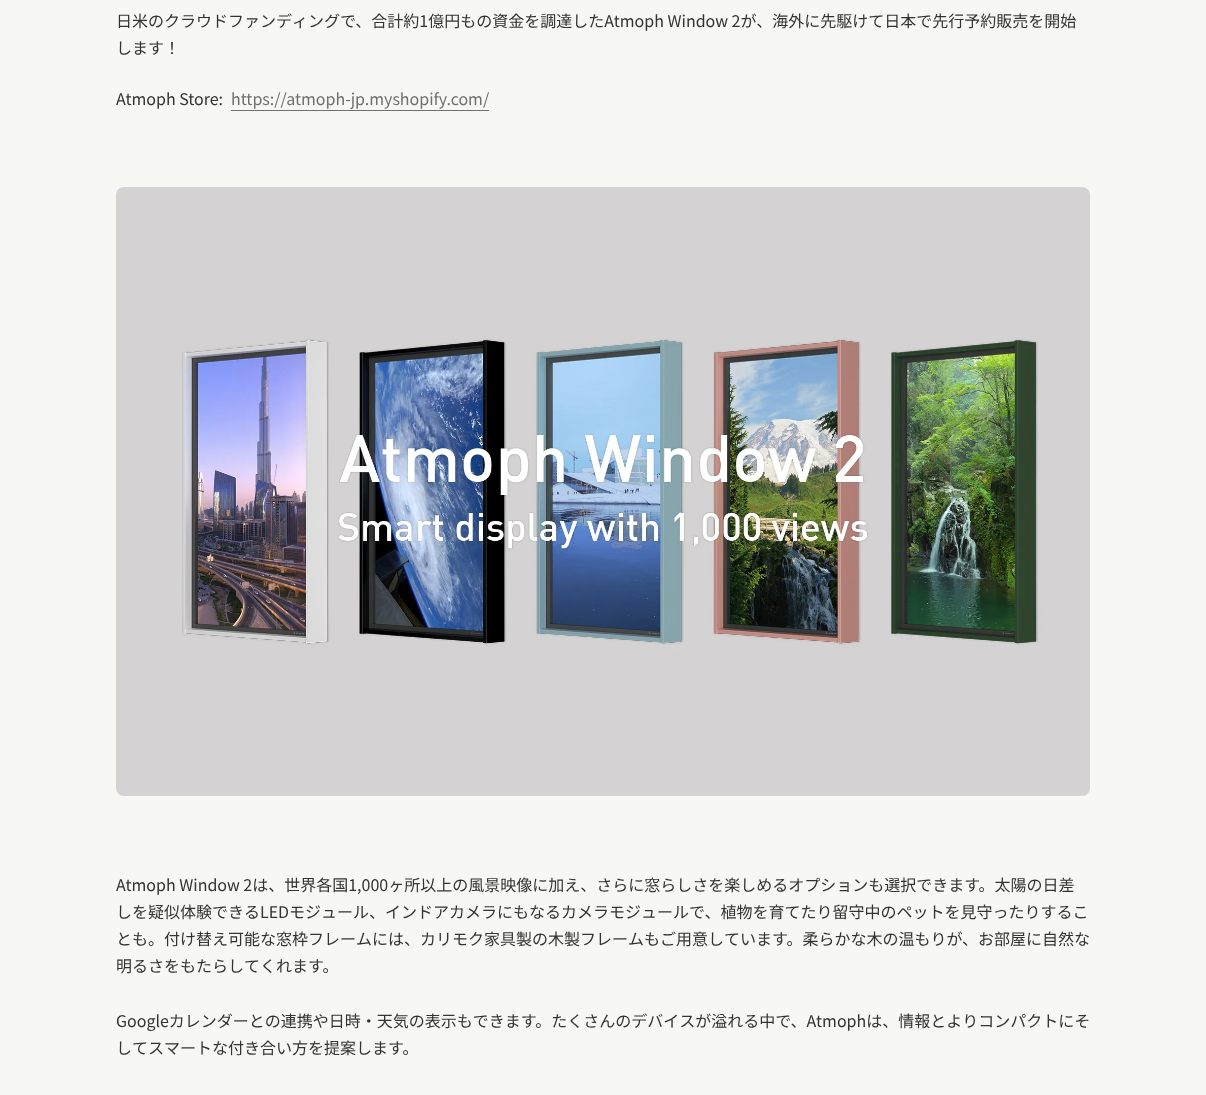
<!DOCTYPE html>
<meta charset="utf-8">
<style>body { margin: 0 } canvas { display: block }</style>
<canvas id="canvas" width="1206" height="1095"></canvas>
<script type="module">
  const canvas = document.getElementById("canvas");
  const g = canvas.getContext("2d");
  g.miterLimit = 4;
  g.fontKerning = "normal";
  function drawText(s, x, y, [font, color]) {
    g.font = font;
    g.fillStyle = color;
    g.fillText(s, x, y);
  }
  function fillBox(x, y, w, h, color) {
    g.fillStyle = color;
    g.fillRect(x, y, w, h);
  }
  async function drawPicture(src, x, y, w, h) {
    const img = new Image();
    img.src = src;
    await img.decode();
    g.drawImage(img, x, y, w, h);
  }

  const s1 = ["16px Noto Sans JP", "#333333"];
  const s2 = ["16px Noto Sans JP", "#6F6F6F"];

  fillBox(0, 0, 1206, 1095, "#F7F7F3");
  drawText("日米のクラウドファンディングで、合計約1億円もの資金を調達したAtmoph Window 2が、海外に先駆けて日本で先行予約販売を開始", 116, 27, s1);
  drawText("します！", 116, 54, s1);
  drawText("Atmoph Store:", 116, 105, s1);
  drawText("https://atmoph-jp.myshopify.com/", 231, 105, s2);
  fillBox(231, 110, 258, 1, "#6F6F6F");
  await drawPicture("pic1.png", 116, 187, 974, 609);
  drawText("Atmoph Window 2は、世界各国1,000ヶ所以上の風景映像に加え、さらに窓らしさを楽しめるオプションも選択できます。太陽の日差", 116, 891, s1);
  drawText("しを疑似体験できるLEDモジュール、インドアカメラにもなるカメラモジュールで、植物を育てたり留守中のペットを見守ったりするこ", 116, 918, s1);
  drawText("とも。付け替え可能な窓枠フレームには、カリモク家具製の木製フレームもご用意しています。柔らかな木の温もりが、お部屋に自然な", 116, 945, s1);
  drawText("明るさをもたらしてくれます。", 116, 972, s1);
  drawText("Googleカレンダーとの連携や日時・天気の表示もできます。たくさんのデバイスが溢れる中で、Atmophは、情報とよりコンパクトにそ", 116, 1027, s1);
  drawText("してスマートな付き合い方を提案します。", 116, 1054, s1);
</script>
